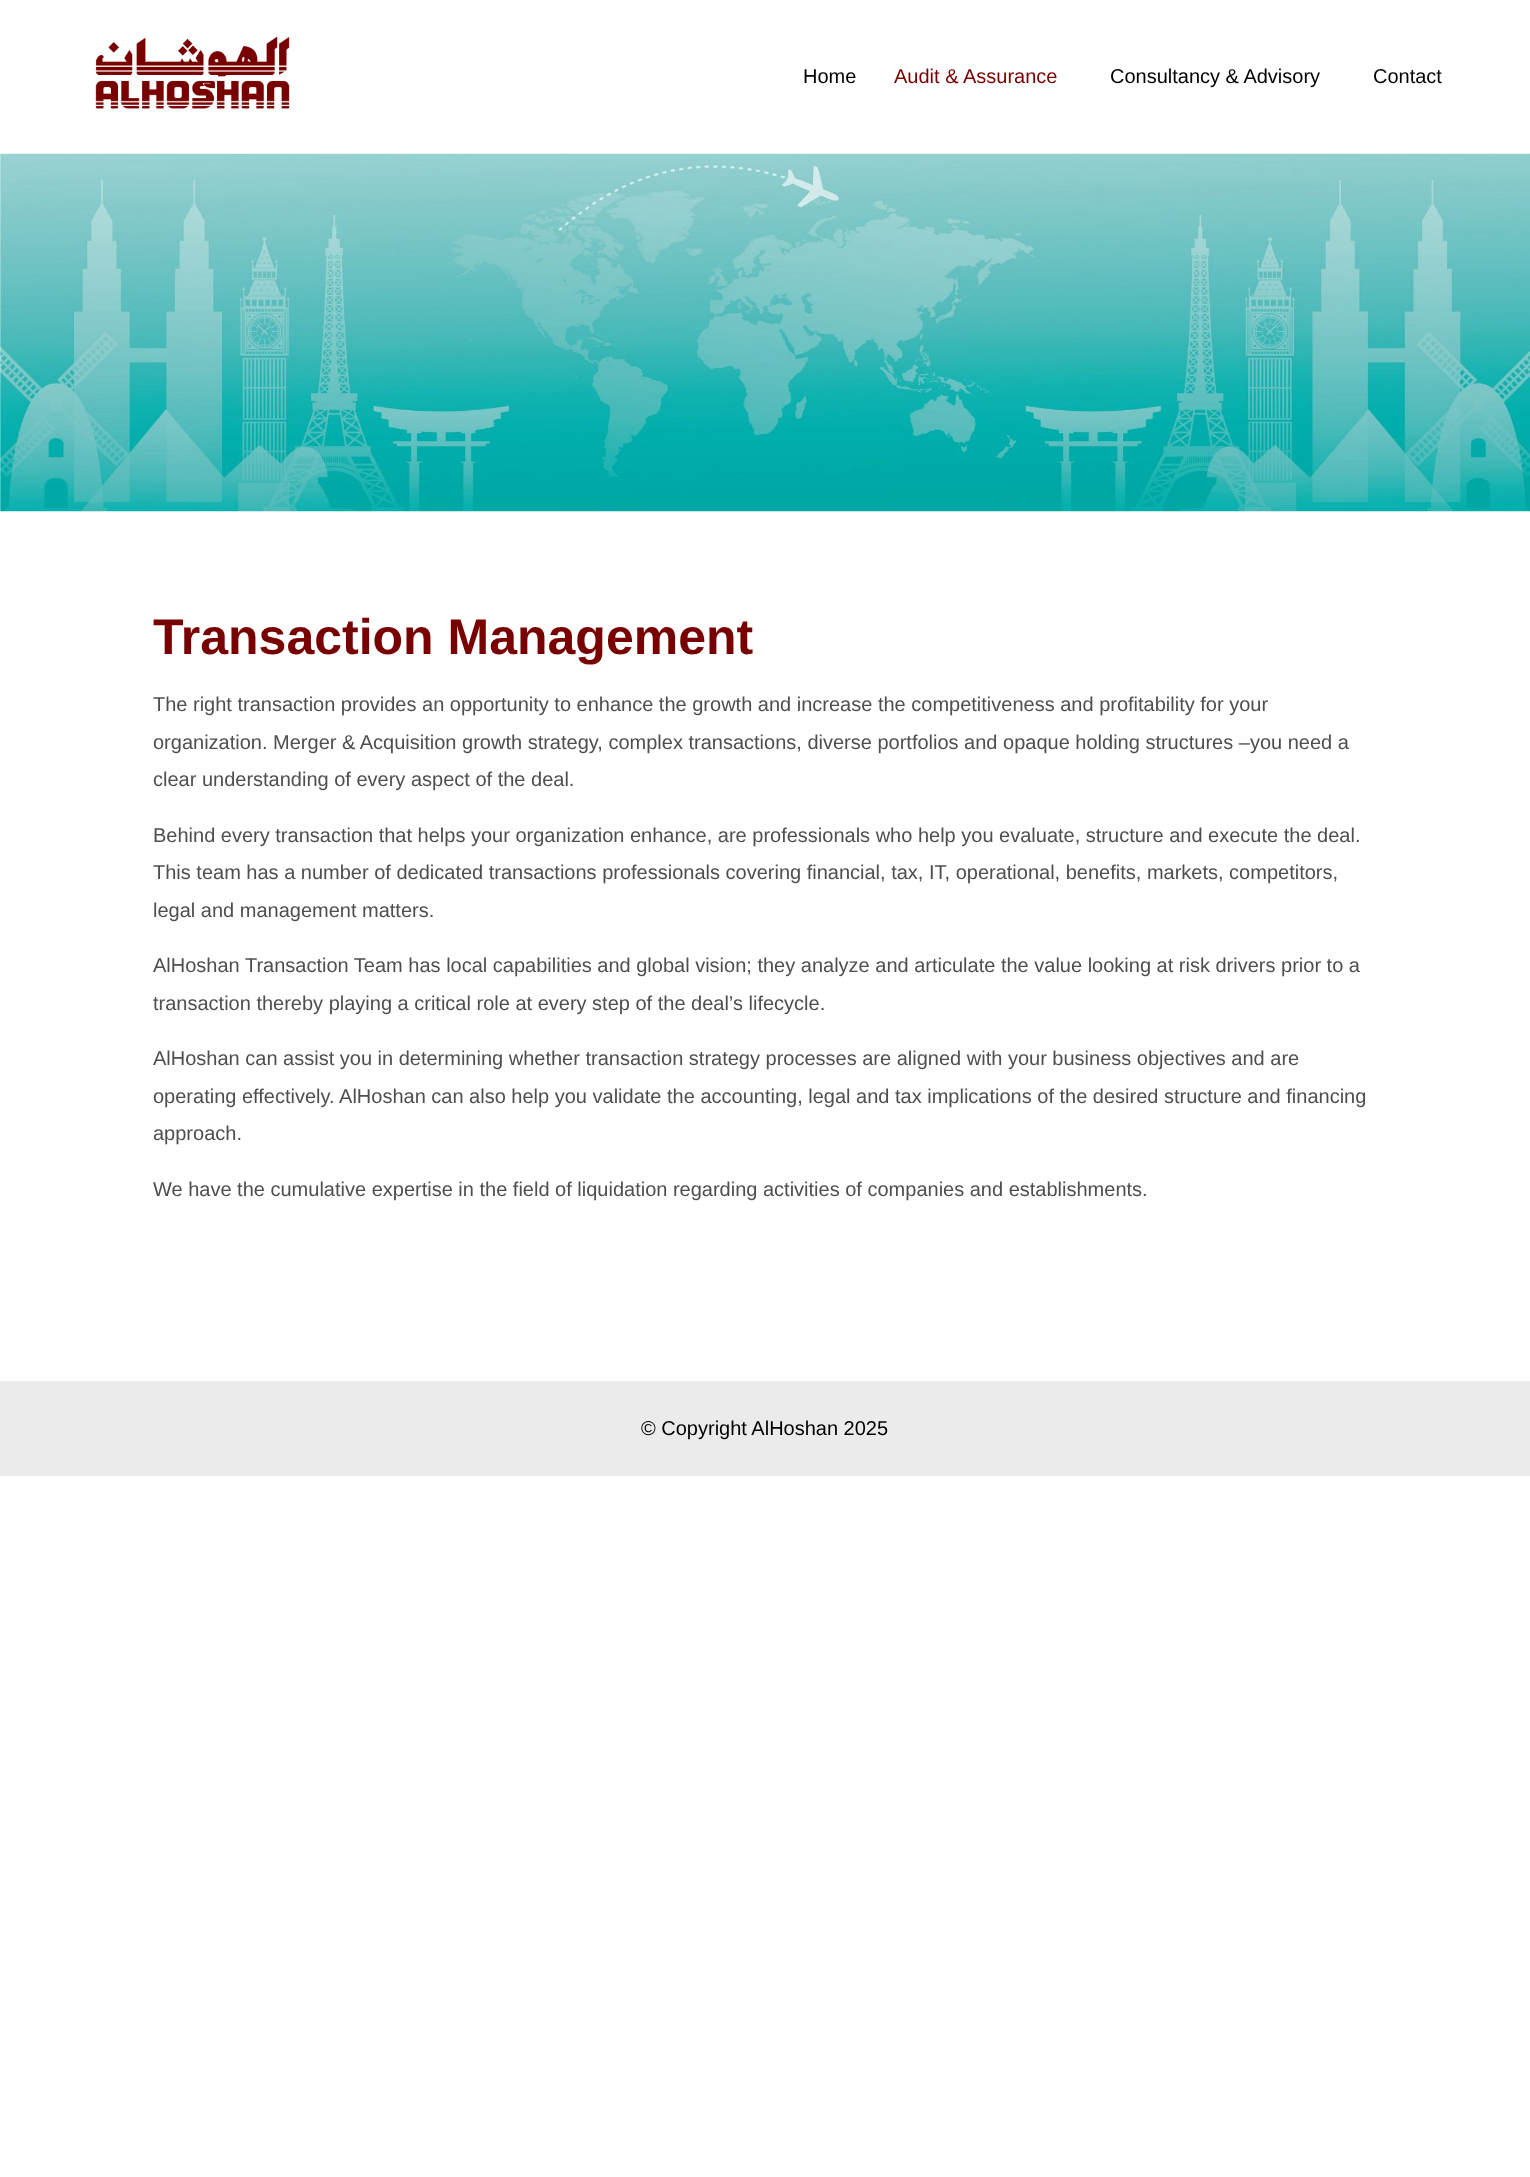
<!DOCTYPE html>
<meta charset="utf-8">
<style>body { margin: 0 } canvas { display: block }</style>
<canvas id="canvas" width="1530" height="2177"></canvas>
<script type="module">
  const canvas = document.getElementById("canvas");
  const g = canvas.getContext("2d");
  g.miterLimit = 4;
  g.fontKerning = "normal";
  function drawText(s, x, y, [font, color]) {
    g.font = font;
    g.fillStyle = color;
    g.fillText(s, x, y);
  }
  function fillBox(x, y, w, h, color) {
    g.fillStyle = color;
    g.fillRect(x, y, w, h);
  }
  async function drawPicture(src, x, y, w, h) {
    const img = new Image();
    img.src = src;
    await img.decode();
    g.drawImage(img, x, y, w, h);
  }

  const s1 = ["20px Liberation Sans", "#000000"];
  const s2 = ["20px Liberation Sans", "#780000"];
  const s3 = ["bold 50px Liberation Sans", "#780000"];
  const s4 = ["20px Liberation Sans", "#4E4E4E"];

  fillBox(0, 0, 1530, 2177, "#FFFFFF");
  await drawPicture("pic1.png", 95, 36, 195, 73);
  drawText("Home", 803, 83, s1);
  drawText("Audit & Assurance", 894, 83, s2);
  drawText("Consultancy & Advisory", 1110, 83, s1);
  drawText("Contact", 1373, 83, s1);
  await drawPicture("pic2.png", 0, 153, 1530, 359);
  drawText("Transaction Management", 153, 654, s3);
  drawText("The right transaction provides an opportunity to enhance the growth and increase the competitiveness and profitability for your", 153, 711, s4);
  drawText("organization. Merger & Acquisition growth strategy, complex transactions, diverse portfolios and opaque holding structures –you need a", 153, 749, s4);
  drawText("clear understanding of every aspect of the deal.", 153, 786, s4);
  drawText("Behind every transaction that helps your organization enhance, are professionals who help you evaluate, structure and execute the deal.", 153, 842, s4);
  drawText("This team has a number of dedicated transactions professionals covering financial, tax, IT, operational, benefits, markets, competitors,", 153, 879, s4);
  drawText("legal and management matters.", 153, 917, s4);
  drawText("AlHoshan Transaction Team has local capabilities and global vision; they analyze and articulate the value looking at risk drivers prior to a", 153, 972, s4);
  drawText("transaction thereby playing a critical role at every step of the deal’s lifecycle.", 153, 1010, s4);
  drawText("AlHoshan can assist you in determining whether transaction strategy processes are aligned with your business objectives and are", 153, 1065, s4);
  drawText("operating effectively. AlHoshan can also help you validate the accounting, legal and tax implications of the desired structure and financing", 153, 1103, s4);
  drawText("approach.", 153, 1140, s4);
  drawText("We have the cumulative expertise in the field of liquidation regarding activities of companies and establishments.", 153, 1196, s4);
  fillBox(0, 1381, 1530, 95, "#EBEBEB");
  drawText("© Copyright AlHoshan 2025", 641, 1435, s1);
</script>
